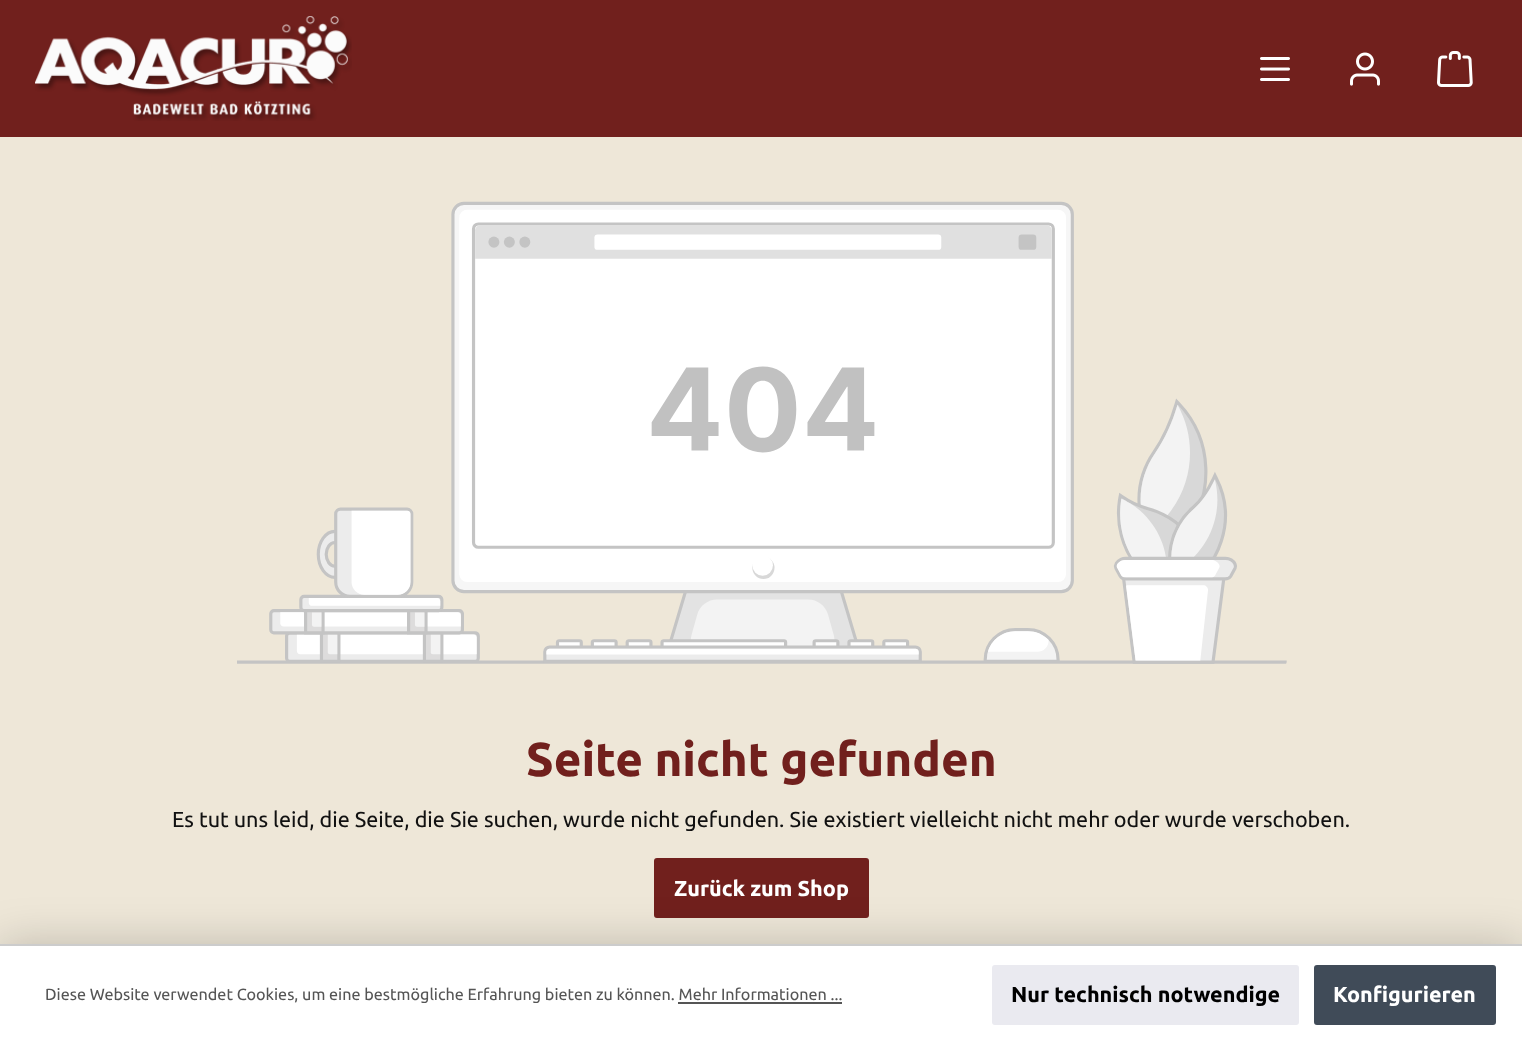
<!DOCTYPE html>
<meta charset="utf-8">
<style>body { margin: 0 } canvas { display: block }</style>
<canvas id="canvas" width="1522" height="1044"></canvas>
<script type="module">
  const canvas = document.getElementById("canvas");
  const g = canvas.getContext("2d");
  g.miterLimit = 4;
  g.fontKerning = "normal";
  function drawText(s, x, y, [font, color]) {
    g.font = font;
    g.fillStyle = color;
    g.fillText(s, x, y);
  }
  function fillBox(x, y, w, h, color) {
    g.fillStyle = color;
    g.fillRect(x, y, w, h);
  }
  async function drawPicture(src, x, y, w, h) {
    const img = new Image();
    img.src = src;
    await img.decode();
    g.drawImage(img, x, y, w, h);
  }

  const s1 = ["bold 47.5px Ubuntu", "#71201D"];
  const s2 = ["21.6px Ubuntu", "#111111"];
  const s3 = ["bold 21.6px Ubuntu", "#FFFFFF"];
  const s4 = ["16.2px Ubuntu", "#555555"];
  const s5 = ["bold 21.6px Ubuntu", "#000000"];

  fillBox(0, 0, 1522, 1044, "#EEE7D8");
  fillBox(0, 0, 1522, 137, "#71201D");
  await drawPicture("pic1.png", 35, 16, 317, 105);
  await drawPicture("pic2.png", 1260, 57, 30, 24);
  await drawPicture("pic3.png", 1350, 52, 30, 34);
  await drawPicture("pic4.png", 1437, 51, 36, 36);
  await drawPicture("pic5.png", 237, 201, 1050, 463);
  drawText("Seite nicht gefunden", 526, 776, s1);
  drawText("Es tut uns leid, die Seite, die Sie suchen, wurde nicht gefunden. Sie existiert vielleicht nicht mehr oder wurde verschoben.", 172, 827, s2);
  g.fillStyle = "#71201D";
  g.beginPath();
  g.roundRect(655, 859, 213, 58, 2);
  g.fill();
  g.strokeStyle = "#71201D";
  g.lineWidth = 2;
  g.stroke();
  drawText("Zurück zum Shop", 674, 896, s3);
  g.fillStyle = "rgba(0, 0, 0, 0.2)";
  g.filter = "blur(22.5px)";
  g.beginPath();
  g.rect(0, 944, 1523, 100);
  g.fill();
  g.filter = "none";
  fillBox(0, 946, 1522, 98, "#FFFFFF");
  fillBox(0, 944, 1522, 2, "#CCCCCC");
  drawText("Diese Website verwendet Cookies, um eine bestmögliche Erfahrung bieten zu können. Mehr Informationen ...", 45, 1000, s4);
  fillBox(678, 1002, 164, 2, "#555555");
  g.fillStyle = "#EAEAF0";
  g.beginPath();
  g.roundRect(993, 966, 305, 58, 2);
  g.fill();
  g.strokeStyle = "#EAEAF0";
  g.stroke();
  drawText("Nur technisch notwendige", 1011, 1002, s5);
  g.fillStyle = "#404B58";
  g.beginPath();
  g.roundRect(1315, 966, 180, 58, 2);
  g.fill();
  g.strokeStyle = "#404B58";
  g.stroke();
  drawText("Konfigurieren", 1333, 1002, s3);
</script>
